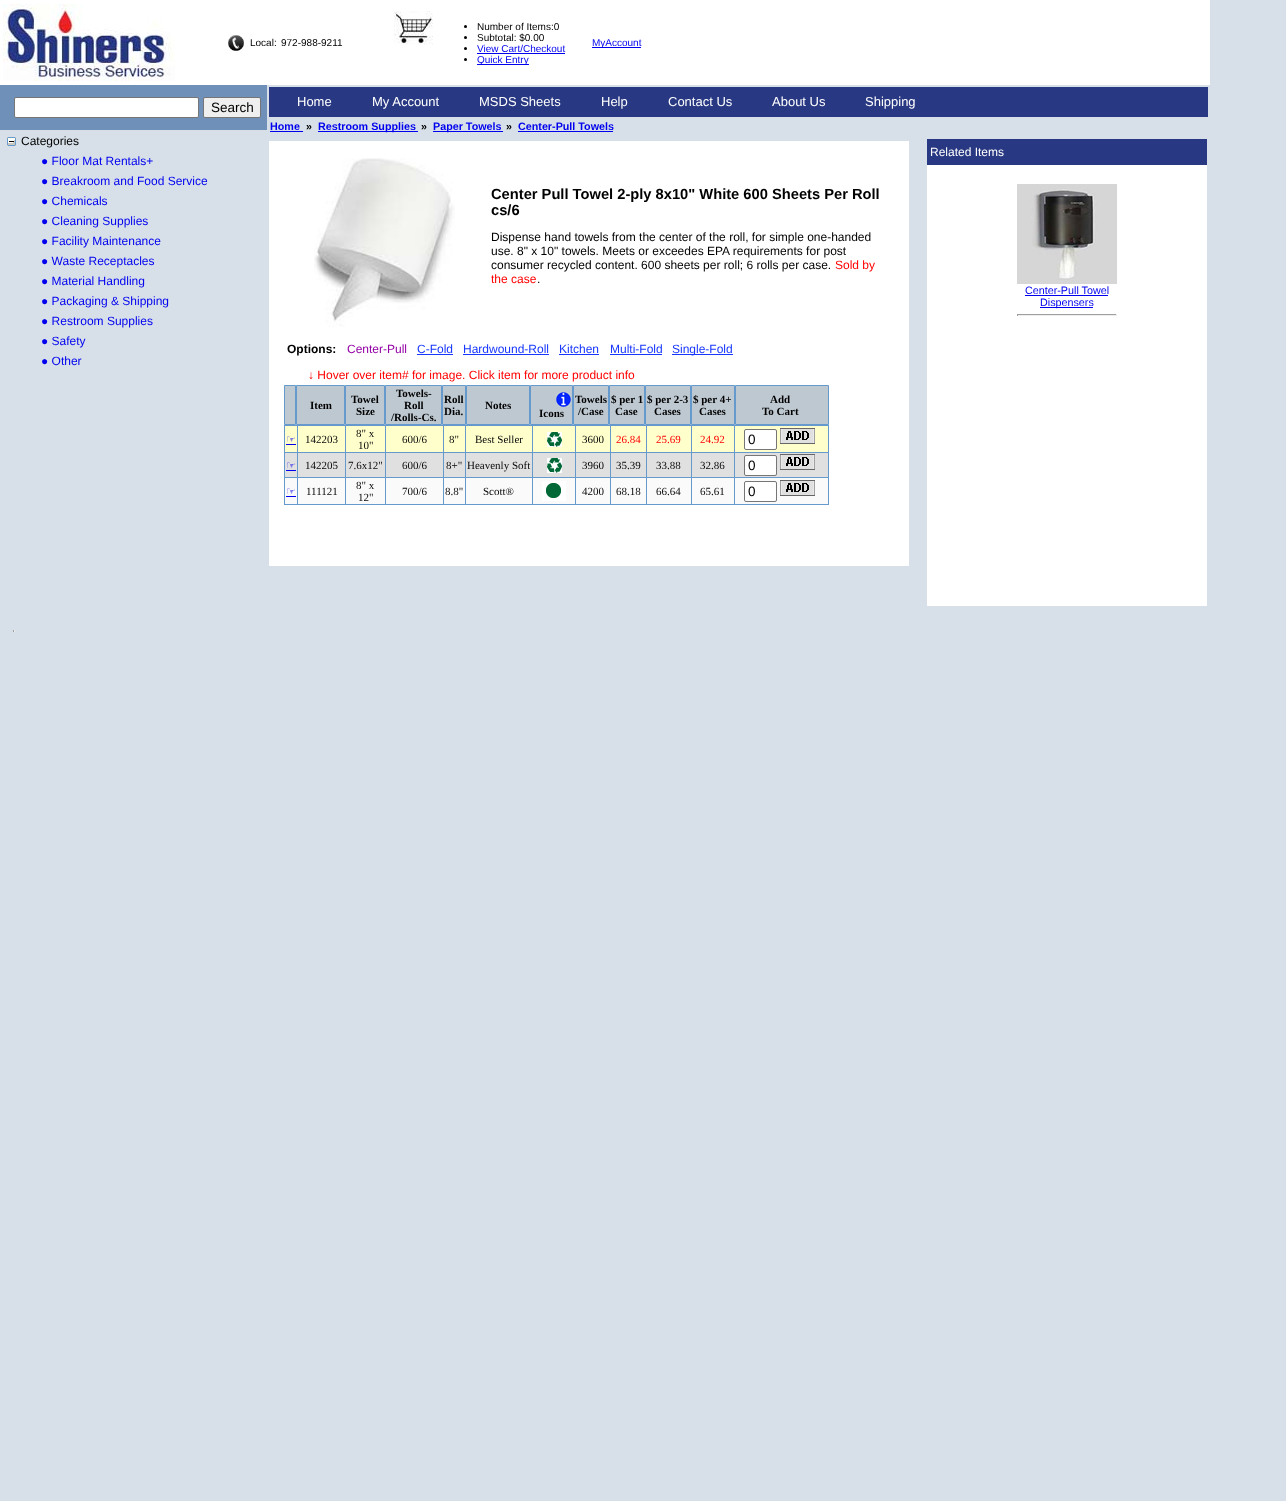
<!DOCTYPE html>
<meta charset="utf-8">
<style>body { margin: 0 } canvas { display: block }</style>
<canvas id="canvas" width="1286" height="1501"></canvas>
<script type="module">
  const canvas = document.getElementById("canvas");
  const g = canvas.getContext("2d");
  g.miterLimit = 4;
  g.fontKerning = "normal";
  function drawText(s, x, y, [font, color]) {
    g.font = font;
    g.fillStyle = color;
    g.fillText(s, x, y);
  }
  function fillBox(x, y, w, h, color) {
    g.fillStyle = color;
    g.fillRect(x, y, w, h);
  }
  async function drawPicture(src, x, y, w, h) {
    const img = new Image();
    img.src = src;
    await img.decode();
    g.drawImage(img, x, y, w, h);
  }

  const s1 = ["10px Liberation Sans", "#000000"];
  const s2 = ["10px Liberation Sans", "#0000EE"];
  const s3 = ["13.5px Liberation Sans", "#000000"];
  const s4 = ["12px Liberation Sans", "#000000"];
  const s5 = ["12px Liberation Sans", "#0000EE"];
  const s6 = ["13px Liberation Sans", "#FFFFFF"];
  const s7 = ["bold 10.75px Liberation Sans", "#0000EE"];
  const s8 = ["bold 10.75px Liberation Sans", "#000000"];
  const s9 = ["bold 14.7px Liberation Sans", "#000000"];
  const s10 = ["12px Liberation Sans", "#FF0000"];
  const s11 = ["bold 12px Liberation Sans", "#000000"];
  const s12 = ["12px Liberation Sans", "#9300A5"];
  const s13 = ["12px Liberation Sans", "#1736FE"];
  const s14 = ["bold 11px Liberation Serif", "#000000"];
  const s15 = ["11px DejaVu Sans", "#0000EE"];
  const s16 = ["11px Liberation Serif", "#090909"];
  const s17 = ["11px Liberation Serif", "#FF0000"];
  const s18 = ["12px Liberation Sans", "#FFFFFF"];
  const s19 = ["10.75px Liberation Sans", "#0000EE"];

  fillBox(0, 0, 1286, 1501, "#D7E0E8");
  fillBox(0, 0, 1210, 85, "#FFFFFF");
  await drawPicture("pic1.png", 3, 4, 172, 77);
  await drawPicture("pic2.png", 228, 35, 16, 16);
  drawText("Local:", 250, 46, s1);
  drawText("972-988-9211", 281, 46, s1);
  await drawPicture("pic3.png", 394, 11, 39, 34);
  g.beginPath();
  g.arc(465.5, 26.5, 1.5, 0, Math.PI * 2);
  g.fill();
  drawText("Number of Items:0", 477, 30, s1);
  g.beginPath();
  g.arc(465.5, 37.5, 1.5, 0, Math.PI * 2);
  g.fill();
  drawText("Subtotal: $0.00", 477, 41, s1);
  g.beginPath();
  g.arc(465.5, 48.5, 1.5, 0, Math.PI * 2);
  g.fill();
  drawText("View Cart/Checkout", 477, 52, s2);
  fillBox(477, 53, 88, 1, "#0000EE");
  g.fillStyle = "#000000";
  g.beginPath();
  g.arc(465.5, 59.5, 1.5, 0, Math.PI * 2);
  g.fill();
  fillBox(477, 64, 52, 1, "#0000EE");
  drawText("Quick Entry", 477, 63, s2);
  fillBox(592, 47, 49, 1, "#0000EE");
  drawText("MyAccount", 592, 46, s2);
  fillBox(0, 85, 267, 45, "#6F90B8");
  g.fillStyle = "#FFFFFF";
  g.beginPath();
  g.roundRect(14.5, 97.5, 184, 20, 1.5);
  g.fill();
  g.strokeStyle = "#767676";
  g.stroke();
  g.fillStyle = "#EFEFEF";
  g.beginPath();
  g.roundRect(203.5, 97.5, 57, 20, 1.5);
  g.fill();
  g.stroke();
  drawText("Search", 211, 112, s3);
  await drawPicture("pic4.png", 7, 137, 9, 9);
  drawText("Categories", 21, 145, s4);
  drawText("● Floor Mat Rentals+", 41, 165, s5);
  drawText("● Breakroom and Food Service", 41, 185, s5);
  drawText("● Chemicals", 41, 205, s5);
  drawText("● Cleaning Supplies", 41, 225, s5);
  drawText("● Facility Maintenance", 41, 245, s5);
  drawText("● Waste Receptacles", 41, 265, s5);
  drawText("● Material Handling", 41, 285, s5);
  drawText("● Packaging & Shipping", 41, 305, s5);
  drawText("● Restroom Supplies", 41, 325, s5);
  drawText("● Safety", 41, 345, s5);
  drawText("● Other", 41, 365, s5);
  fillBox(269, 87, 939, 30, "#283882");
  drawText("Home", 297, 106, s6);
  drawText("My Account", 372, 106, s6);
  drawText("MSDS Sheets", 479, 106, s6);
  drawText("Help", 601, 106, s6);
  drawText("Contact Us", 668, 106, s6);
  drawText("About Us", 772, 106, s6);
  drawText("Shipping", 865, 106, s6);
  drawText("Home", 270, 130, s7);
  fillBox(270, 131, 33, 1, "#0000EE");
  drawText("»", 306, 130, s8);
  fillBox(318, 131, 100, 1, "#0000EE");
  drawText("Restroom Supplies", 318, 130, s7);
  drawText("»", 421, 130, s8);
  fillBox(433, 131, 70, 1, "#0000EE");
  drawText("Paper Towels", 433, 130, s7);
  drawText("»", 506, 130, s8);
  drawText("Center-Pull Towels", 518, 130, s7);
  fillBox(518, 131, 95, 1, "#0000EE");
  fillBox(269, 141, 640, 425, "#FFFFFF");
  await drawPicture("pic5.png", 314, 158, 141, 169);
  drawText("Center Pull Towel 2-ply 8x10\" White 600 Sheets Per Roll", 491, 199, s9);
  drawText("cs/6", 491, 215, s9);
  drawText("Dispense hand towels from the center of the roll, for simple one-handed", 491, 241, s4);
  drawText("use. 8\" x 10\" towels. Meets or exceedes EPA requirements for post", 491, 255, s4);
  drawText("consumer recycled content. 600 sheets per roll; 6 rolls per case.", 491, 269, s4);
  drawText("Sold by", 835, 269, s10);
  drawText("the case", 491, 283, s10);
  drawText(".", 537, 283, s4);
  drawText("Options:", 287, 353, s11);
  drawText("Center-Pull", 347, 353, s12);
  drawText("C-Fold", 417, 353, s13);
  fillBox(417, 354, 36, 1, "#1736FE");
  drawText("Hardwound-Roll", 463, 353, s13);
  fillBox(463, 354, 86, 1, "#1736FE");
  drawText("Kitchen", 559, 353, s13);
  fillBox(559, 354, 40, 1, "#1736FE");
  drawText("Multi-Fold", 610, 353, s13);
  fillBox(610, 354, 52, 1, "#1736FE");
  fillBox(672, 354, 61, 1, "#1736FE");
  drawText("Single-Fold", 672, 353, s13);
  drawText("↓ Hover over item# for image. Click item for more product info", 308, 379, s10);
  g.fillStyle = "#BEC8D1";
  g.beginPath();
  g.rect(284.5, 385.5, 11, 39);
  g.fill();
  g.strokeStyle = "#6699CC";
  g.stroke();
  g.beginPath();
  g.rect(296.5, 385.5, 48, 39);
  g.fill();
  g.stroke();
  drawText("Item", 310, 409, s14);
  g.fillStyle = "#BEC8D1";
  g.beginPath();
  g.rect(345.5, 385.5, 39, 39);
  g.fill();
  g.stroke();
  drawText("Towel", 351, 403, s14);
  drawText("Size", 356, 415, s14);
  g.fillStyle = "#BEC8D1";
  g.beginPath();
  g.rect(385.5, 385.5, 56, 39);
  g.fill();
  g.stroke();
  drawText("Towels-", 396, 397, s14);
  drawText("Roll", 404, 409, s14);
  drawText("/Rolls-Cs.", 391, 421, s14);
  g.fillStyle = "#BEC8D1";
  g.beginPath();
  g.rect(442.5, 385.5, 23, 39);
  g.fill();
  g.stroke();
  drawText("Roll", 444, 403, s14);
  drawText("Dia.", 444, 415, s14);
  g.fillStyle = "#BEC8D1";
  g.beginPath();
  g.rect(466.5, 385.5, 63, 39);
  g.fill();
  g.stroke();
  drawText("Notes", 485, 409, s14);
  g.fillStyle = "#BEC8D1";
  g.beginPath();
  g.rect(573.5, 385.5, 35, 39);
  g.fill();
  g.stroke();
  drawText("Towels", 575, 403, s14);
  drawText("/Case", 578, 415, s14);
  g.fillStyle = "#BEC8D1";
  g.beginPath();
  g.rect(609.5, 385.5, 35, 39);
  g.fill();
  g.stroke();
  drawText("$ per 1", 611, 403, s14);
  drawText("Case", 615, 415, s14);
  g.fillStyle = "#BEC8D1";
  g.beginPath();
  g.rect(645.5, 385.5, 45, 39);
  g.fill();
  g.stroke();
  drawText("$ per 2-3", 647, 403, s14);
  drawText("Cases", 654, 415, s14);
  g.fillStyle = "#BEC8D1";
  g.beginPath();
  g.rect(691.5, 385.5, 43, 39);
  g.fill();
  g.stroke();
  drawText("$ per 4+", 693, 403, s14);
  drawText("Cases", 699, 415, s14);
  g.fillStyle = "#BEC8D1";
  g.beginPath();
  g.rect(735.5, 385.5, 93, 39);
  g.fill();
  g.stroke();
  drawText("Add", 770, 403, s14);
  drawText("To Cart", 762, 415, s14);
  g.fillStyle = "#BEC8D1";
  g.beginPath();
  g.rect(530.5, 385.5, 42, 39);
  g.fill();
  g.stroke();
  await drawPicture("pic6.png", 556, 392, 15, 15);
  drawText("Icons", 539, 417, s14);
  fillBox(285, 478, 543, 26, "#FAFAFA");
  fillBox(285, 426, 12, 26, "#FFFFCC");
  fillBox(734, 425, 95, 1, "#6699CC");
  fillBox(734, 452, 95, 1, "#6699CC");
  fillBox(734, 477, 95, 1, "#6699CC");
  fillBox(828, 477, 1, 28, "#6699CC");
  fillBox(734, 504, 95, 1, "#6699CC");
  fillBox(734, 477, 1, 28, "#6699CC");
  fillBox(691, 477, 44, 1, "#6699CC");
  fillBox(734, 452, 1, 26, "#6699CC");
  fillBox(691, 452, 44, 1, "#6699CC");
  fillBox(734, 425, 1, 28, "#6699CC");
  fillBox(691, 425, 44, 1, "#6699CC");
  fillBox(691, 504, 44, 1, "#6699CC");
  fillBox(691, 477, 1, 28, "#6699CC");
  fillBox(646, 477, 46, 1, "#6699CC");
  fillBox(691, 452, 1, 26, "#6699CC");
  fillBox(646, 452, 46, 1, "#6699CC");
  fillBox(691, 425, 1, 28, "#6699CC");
  fillBox(646, 425, 46, 1, "#6699CC");
  fillBox(646, 504, 46, 1, "#6699CC");
  fillBox(646, 477, 1, 28, "#6699CC");
  fillBox(610, 477, 37, 1, "#6699CC");
  fillBox(646, 452, 1, 26, "#6699CC");
  fillBox(610, 452, 37, 1, "#6699CC");
  fillBox(646, 425, 1, 28, "#6699CC");
  fillBox(610, 425, 37, 1, "#6699CC");
  fillBox(610, 504, 37, 1, "#6699CC");
  fillBox(610, 477, 1, 28, "#6699CC");
  fillBox(575, 477, 36, 1, "#6699CC");
  fillBox(610, 452, 1, 26, "#6699CC");
  fillBox(575, 452, 36, 1, "#6699CC");
  fillBox(610, 425, 1, 28, "#6699CC");
  fillBox(575, 425, 36, 1, "#6699CC");
  fillBox(575, 504, 36, 1, "#6699CC");
  fillBox(575, 477, 1, 28, "#6699CC");
  fillBox(532, 477, 44, 1, "#6699CC");
  fillBox(575, 452, 1, 26, "#6699CC");
  fillBox(532, 452, 44, 1, "#6699CC");
  fillBox(575, 425, 1, 28, "#6699CC");
  fillBox(532, 425, 44, 1, "#6699CC");
  fillBox(532, 504, 44, 1, "#6699CC");
  fillBox(532, 477, 1, 28, "#6699CC");
  fillBox(465, 477, 68, 1, "#6699CC");
  fillBox(532, 452, 1, 26, "#6699CC");
  fillBox(465, 452, 68, 1, "#6699CC");
  fillBox(532, 425, 1, 28, "#6699CC");
  fillBox(465, 425, 68, 1, "#6699CC");
  fillBox(465, 504, 68, 1, "#6699CC");
  fillBox(465, 477, 1, 28, "#6699CC");
  fillBox(443, 477, 23, 1, "#6699CC");
  fillBox(465, 452, 1, 26, "#6699CC");
  fillBox(443, 452, 23, 1, "#6699CC");
  fillBox(465, 425, 1, 28, "#6699CC");
  fillBox(443, 425, 23, 1, "#6699CC");
  fillBox(443, 504, 23, 1, "#6699CC");
  fillBox(443, 477, 1, 28, "#6699CC");
  fillBox(385, 477, 59, 1, "#6699CC");
  fillBox(443, 452, 1, 26, "#6699CC");
  fillBox(385, 452, 59, 1, "#6699CC");
  fillBox(443, 425, 1, 28, "#6699CC");
  fillBox(385, 425, 59, 1, "#6699CC");
  fillBox(385, 504, 59, 1, "#6699CC");
  fillBox(385, 477, 1, 28, "#6699CC");
  fillBox(345, 477, 41, 1, "#6699CC");
  fillBox(385, 452, 1, 26, "#6699CC");
  fillBox(345, 452, 41, 1, "#6699CC");
  fillBox(385, 425, 1, 28, "#6699CC");
  fillBox(345, 425, 41, 1, "#6699CC");
  fillBox(345, 504, 41, 1, "#6699CC");
  fillBox(345, 477, 1, 28, "#6699CC");
  fillBox(297, 477, 49, 1, "#6699CC");
  fillBox(345, 452, 1, 26, "#6699CC");
  fillBox(297, 452, 49, 1, "#6699CC");
  fillBox(345, 425, 1, 28, "#6699CC");
  fillBox(297, 425, 49, 1, "#6699CC");
  fillBox(297, 504, 49, 1, "#6699CC");
  fillBox(297, 477, 1, 28, "#6699CC");
  fillBox(284, 477, 14, 1, "#6699CC");
  fillBox(297, 452, 1, 26, "#6699CC");
  fillBox(284, 452, 14, 1, "#6699CC");
  fillBox(297, 425, 1, 28, "#6699CC");
  fillBox(284, 425, 14, 1, "#6699CC");
  fillBox(284, 504, 14, 1, "#6699CC");
  fillBox(284, 477, 1, 28, "#6699CC");
  fillBox(284, 452, 1, 26, "#6699CC");
  fillBox(284, 425, 1, 28, "#6699CC");
  drawText("☞", 286, 443, s15);
  fillBox(286, 444, 10, 1, "#0000EE");
  fillBox(298, 426, 47, 26, "#FFFFCC");
  drawText("142203", 305, 443, s16);
  fillBox(346, 426, 39, 26, "#FFFFCC");
  drawText("8\" x", 356, 437, s16);
  drawText("10\"", 358, 449, s16);
  fillBox(386, 426, 57, 26, "#FFFFCC");
  drawText("600/6", 402, 443, s16);
  fillBox(444, 426, 21, 26, "#FFFFCC");
  drawText("8\"", 449, 443, s16);
  fillBox(466, 426, 66, 26, "#FFFFCC");
  drawText("Best Seller", 475, 443, s16);
  fillBox(533, 426, 42, 26, "#FFFFCC");
  await drawPicture("pic7.png", 547, 432, 15, 15);
  fillBox(576, 426, 34, 26, "#FFFFCC");
  drawText("3600", 582, 443, s16);
  fillBox(611, 426, 35, 26, "#FFFFCC");
  drawText("26.84", 616, 443, s17);
  fillBox(647, 426, 44, 26, "#FFFFCC");
  drawText("25.69", 656, 443, s17);
  fillBox(692, 426, 42, 26, "#FFFFCC");
  drawText("24.92", 700, 443, s17);
  fillBox(735, 426, 93, 26, "#FFFFCC");
  fillBox(828, 452, 1, 26, "#6699CC");
  fillBox(828, 425, 1, 28, "#6699CC");
  g.fillStyle = "#FFFFFF";
  g.beginPath();
  g.roundRect(744.5, 429.5, 32, 20, 1.5);
  g.fill();
  g.strokeStyle = "#767676";
  g.stroke();
  drawText("0", 748, 444, s3);
  await drawPicture("pic8.png", 780, 428, 35, 16);
  fillBox(285, 453, 12, 24, "#E0E0E0");
  drawText("☞", 286, 469, s15);
  fillBox(286, 470, 10, 1, "#0000EE");
  fillBox(298, 453, 47, 24, "#E0E0E0");
  drawText("142205", 305, 469, s16);
  fillBox(346, 453, 39, 24, "#E0E0E0");
  drawText("7.6x12\"", 348, 469, s16);
  fillBox(386, 453, 57, 24, "#E0E0E0");
  drawText("600/6", 402, 469, s16);
  fillBox(444, 453, 21, 24, "#E0E0E0");
  drawText("8+\"", 446, 469, s16);
  fillBox(466, 453, 66, 24, "#E0E0E0");
  drawText("Heavenly Soft", 467, 469, s16);
  fillBox(533, 453, 42, 24, "#E0E0E0");
  await drawPicture("pic7.png", 547, 458, 15, 15);
  fillBox(576, 453, 34, 24, "#E0E0E0");
  drawText("3960", 582, 469, s16);
  fillBox(611, 453, 35, 24, "#E0E0E0");
  drawText("35.39", 616, 469, s16);
  fillBox(647, 453, 44, 24, "#E0E0E0");
  drawText("33.88", 656, 469, s16);
  fillBox(692, 453, 42, 24, "#E0E0E0");
  drawText("32.86", 700, 469, s16);
  fillBox(735, 453, 93, 24, "#E0E0E0");
  g.fillStyle = "#FFFFFF";
  g.beginPath();
  g.roundRect(744.5, 455.5, 32, 20, 1.5);
  g.fill();
  g.stroke();
  drawText("0", 748, 470, s3);
  await drawPicture("pic8.png", 780, 454, 35, 16);
  drawText("☞", 286, 495, s15);
  fillBox(286, 496, 10, 1, "#0000EE");
  drawText("111121", 306, 495, s16);
  drawText("8\" x", 356, 489, s16);
  drawText("12\"", 358, 501, s16);
  drawText("700/6", 402, 495, s16);
  drawText("8.8\"", 445, 495, s16);
  drawText("Scott®", 483, 495, s16);
  await drawPicture("pic9.png", 542, 481, 24, 20);
  drawText("4200", 582, 495, s16);
  drawText("68.18", 616, 495, s16);
  drawText("66.64", 656, 495, s16);
  drawText("65.61", 700, 495, s16);
  g.fillStyle = "#FFFFFF";
  g.beginPath();
  g.roundRect(744.5, 481.5, 32, 20, 1.5);
  g.fill();
  g.stroke();
  drawText("0", 748, 496, s3);
  await drawPicture("pic8.png", 780, 480, 35, 16);
  fillBox(927, 165, 280, 441, "#FFFFFF");
  fillBox(927, 139, 280, 26, "#283882");
  drawText("Related Items", 930, 156, s18);
  await drawPicture("pic10.png", 1017, 184, 100, 100);
  drawText("Center-Pull Towel", 1025, 294, s19);
  fillBox(1025, 295, 83, 1, "#0000EE");
  fillBox(1040, 307, 53, 1, "#0000EE");
  drawText("Dispensers", 1040, 306, s19);
  fillBox(1017, 314, 100, 1, "#9F9F9F");
  fillBox(1116, 314, 1, 2, "#EEEEEE");
  fillBox(1017, 315, 100, 1, "#EEEEEE");
  fillBox(1017, 314, 1, 2, "#9F9F9F");
  fillBox(14, 630, 1, 2, "#EEEEEE");
  fillBox(13, 631, 2, 1, "#EEEEEE");
  fillBox(13, 630, 1, 2, "#9F9F9F");
</script>
